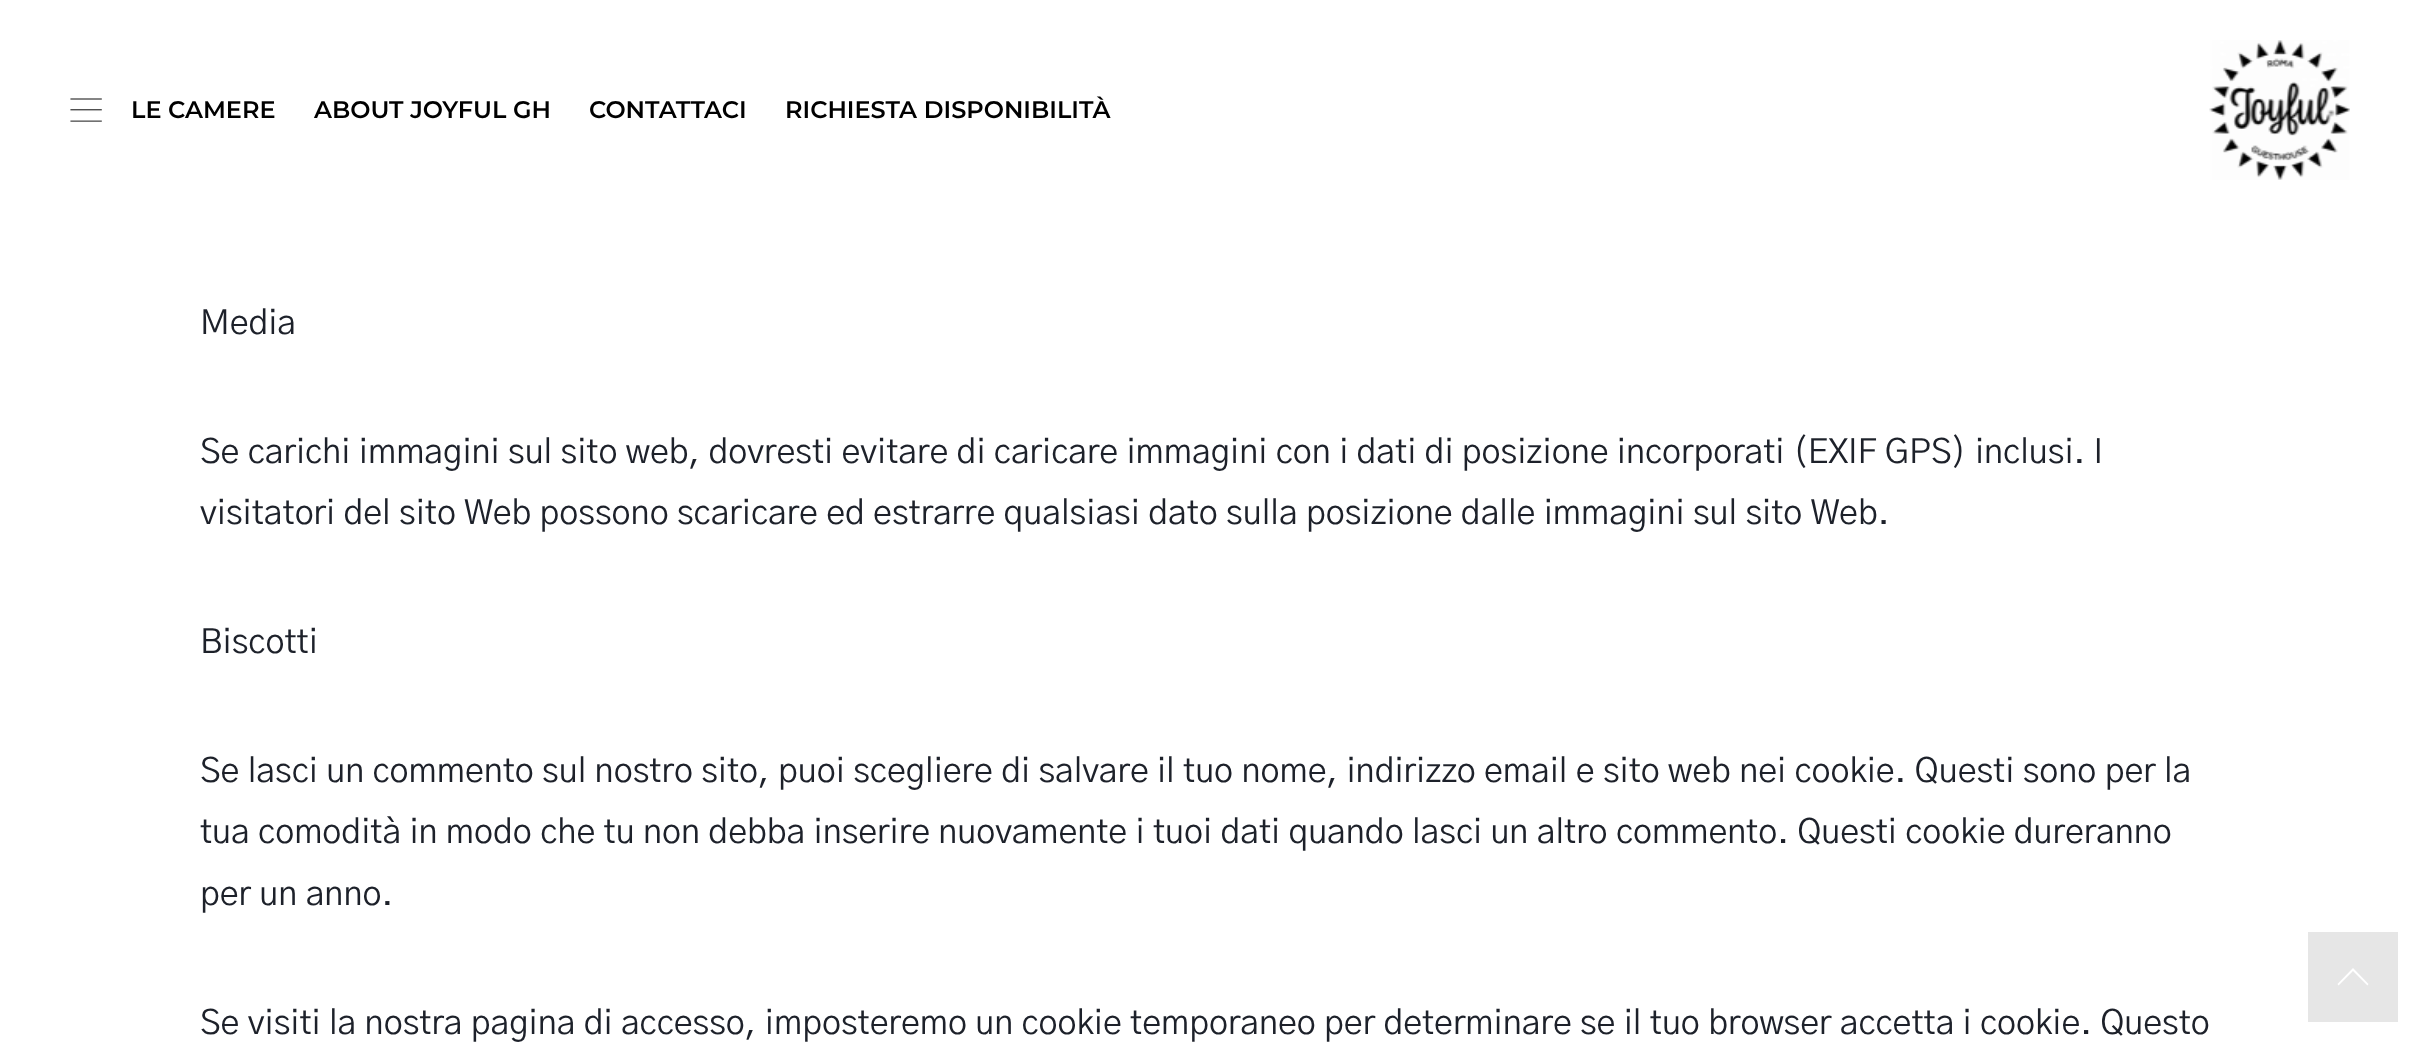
<!DOCTYPE html>
<meta charset="utf-8">
<style>body { margin: 0 } canvas { display: block }</style>
<canvas id="canvas" width="2417" height="1061"></canvas>
<script type="module">
  const canvas = document.getElementById("canvas");
  const g = canvas.getContext("2d");
  g.miterLimit = 4;
  g.fontKerning = "normal";
  function drawText(s, x, y, [font, color]) {
    g.font = font;
    g.fillStyle = color;
    g.fillText(s, x, y);
  }
  function fillBox(x, y, w, h, color) {
    g.fillStyle = color;
    g.fillRect(x, y, w, h);
  }
  async function drawPicture(src, x, y, w, h) {
    const img = new Image();
    img.src = src;
    await img.decode();
    g.drawImage(img, x, y, w, h);
  }

  const s1 = ["600 24px Montserrat", "#000000"];
  const s2 = ["34px 'Gothic A1'", "#1D212A"];

  fillBox(0, 0, 2417, 1061, "#FFFFFF");
  await drawPicture("pic1.png", 70, 98, 32, 24);
  drawText("LE CAMERE", 131, 118, s1);
  drawText("ABOUT JOYFUL GH", 314, 118, s1);
  drawText("CONTATTACI", 589, 118, s1);
  drawText("RICHIESTA DISPONIBILITÀ", 785, 118, s1);
  await drawPicture("pic2.png", 2209, 40, 141, 140);
  drawText("Media", 200, 334, s2);
  drawText("Se carichi immagini sul sito web, dovresti evitare di caricare immagini con i dati di posizione incorporati (EXIF GPS) inclusi. I", 200, 463, s2);
  drawText("visitatori del sito Web possono scaricare ed estrarre qualsiasi dato sulla posizione dalle immagini sul sito Web.", 200, 524, s2);
  drawText("Biscotti", 200, 653, s2);
  drawText("Se lasci un commento sul nostro sito, puoi scegliere di salvare il tuo nome, indirizzo email e sito web nei cookie. Questi sono per la", 200, 782, s2);
  drawText("tua comodità in modo che tu non debba inserire nuovamente i tuoi dati quando lasci un altro commento. Questi cookie dureranno", 200, 843, s2);
  drawText("per un anno.", 200, 905, s2);
  drawText("Se visiti la nostra pagina di accesso, imposteremo un cookie temporaneo per determinare se il tuo browser accetta i cookie. Questo", 200, 1034, s2);
  fillBox(2308, 932, 90, 90, "#E6E6E6");
  g.fillStyle = "#FFFFFF";
  g.beginPath();
  g.moveTo(2368.5, 984);
  g.lineTo(2367.5, 985.5);
  g.lineTo(2353, 971);
  g.lineTo(2338.5, 985.5);
  g.lineTo(2337.5, 984);
  g.lineTo(2353, 968);
  g.closePath();
  g.fill();
</script>
